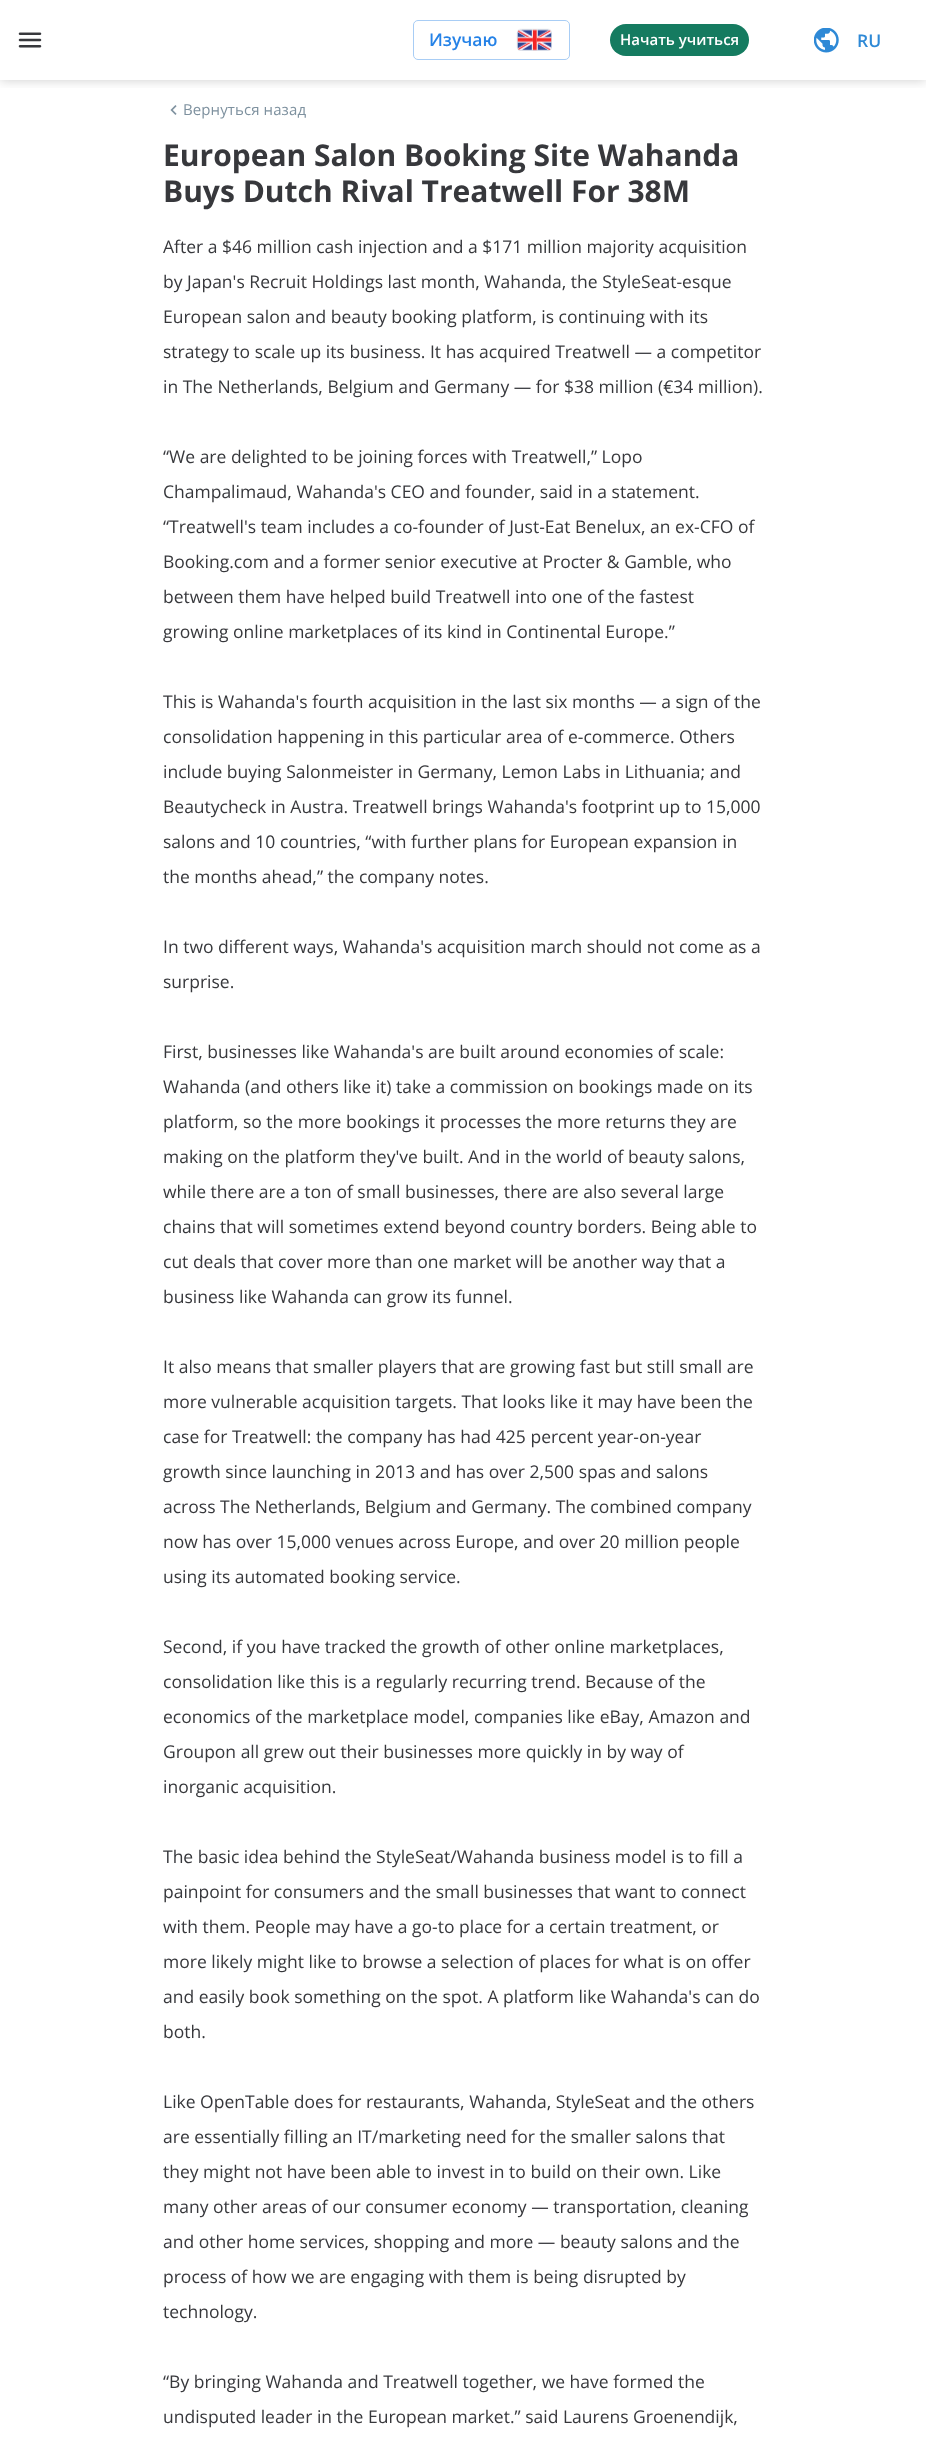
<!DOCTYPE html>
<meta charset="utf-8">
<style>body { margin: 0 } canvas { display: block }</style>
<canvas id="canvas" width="926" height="2445"></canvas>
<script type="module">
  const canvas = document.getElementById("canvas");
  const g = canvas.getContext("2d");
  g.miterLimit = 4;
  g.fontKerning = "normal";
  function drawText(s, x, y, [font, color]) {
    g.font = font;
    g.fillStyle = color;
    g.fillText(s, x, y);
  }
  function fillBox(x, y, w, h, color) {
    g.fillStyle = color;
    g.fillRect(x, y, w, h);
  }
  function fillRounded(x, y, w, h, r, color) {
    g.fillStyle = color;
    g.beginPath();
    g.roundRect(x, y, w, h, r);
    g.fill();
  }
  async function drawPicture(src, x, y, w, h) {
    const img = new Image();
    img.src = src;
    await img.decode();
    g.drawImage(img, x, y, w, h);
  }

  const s1 = ["600 17.5px Open Sans", "#2582E7"];
  const s2 = ["600 15px Open Sans", "#FFFFFF"];
  const s3 = ["600 17.5px Open Sans", "#2E89D6"];
  const s4 = ["15px Open Sans", "#7E919F"];
  const s5 = ["bold 30px Open Sans", "#37383C"];
  const s6 = ["17.5px Open Sans", "#37383C"];

  fillBox(0, 0, 926, 2445, "#FFFFFF");
  g.save();
  g.beginPath();
  g.rect(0, 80, 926, 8);
  g.clip();
  g.fillStyle = "rgba(0, 0, 0, 0.2)";
  g.filter = "blur(6px)";
  g.beginPath();
  g.rect(0, 0, 926, 80);
  g.fill();
  g.filter = "none";
  g.restore();
  await drawPicture("pic1.png", 18, 32, 24, 16);
  g.beginPath();
  g.roundRect(413.5, 20.5, 156, 39, 4.5);
  g.strokeStyle = "#A8CDF5";
  g.stroke();
  drawText("Изучаю", 429, 46, s1);
  await drawPicture("pic2.png", 516, 28, 36, 23);
  fillRounded(610, 24, 139, 32, 16, "#157B60");
  drawText("Начать учиться", 620, 45, s2);
  await drawPicture("pic3.png", 814, 28, 25, 25);
  drawText("RU", 857, 47, s3);
  await drawPicture("pic4.png", 170, 105, 7, 10);
  g.letterSpacing = "0.1px";
  drawText("Вернуться назад", 183, 115, s4);
  g.letterSpacing = "0px";
  drawText("European Salon Booking Site Wahanda", 163, 166, s5);
  drawText("Buys Dutch Rival Treatwell For 38M", 163, 202, s5);
  drawText("After a $46 million cash injection and a $171 million majority acquisition", 163, 253, s6);
  drawText("by Japan's Recruit Holdings last month, Wahanda, the StyleSeat-esque", 163, 288, s6);
  drawText("European salon and beauty booking platform, is continuing with its", 163, 323, s6);
  drawText("strategy to scale up its business. It has acquired Treatwell — a competitor", 163, 358, s6);
  drawText("in The Netherlands, Belgium and Germany — for $38 million (€34 million).", 163, 393, s6);
  drawText("“We are delighted to be joining forces with Treatwell,” Lopo", 163, 463, s6);
  drawText("Champalimaud, Wahanda's CEO and founder, said in a statement.", 163, 498, s6);
  drawText("“Treatwell's team includes a co-founder of Just-Eat Benelux, an ex-CFO of", 163, 533, s6);
  drawText("Booking.com and a former senior executive at Procter & Gamble, who", 163, 568, s6);
  drawText("between them have helped build Treatwell into one of the fastest", 163, 603, s6);
  drawText("growing online marketplaces of its kind in Continental Europe.”", 163, 638, s6);
  drawText("This is Wahanda's fourth acquisition in the last six months — a sign of the", 163, 708, s6);
  drawText("consolidation happening in this particular area of e-commerce. Others", 163, 743, s6);
  drawText("include buying Salonmeister in Germany, Lemon Labs in Lithuania; and", 163, 778, s6);
  drawText("Beautycheck in Austra. Treatwell brings Wahanda's footprint up to 15,000", 163, 813, s6);
  drawText("salons and 10 countries, “with further plans for European expansion in", 163, 848, s6);
  drawText("the months ahead,” the company notes.", 163, 883, s6);
  drawText("In two different ways, Wahanda's acquisition march should not come as a", 163, 953, s6);
  drawText("surprise.", 163, 988, s6);
  drawText("First, businesses like Wahanda's are built around economies of scale:", 163, 1058, s6);
  drawText("Wahanda (and others like it) take a commission on bookings made on its", 163, 1093, s6);
  drawText("platform, so the more bookings it processes the more returns they are", 163, 1128, s6);
  drawText("making on the platform they've built. And in the world of beauty salons,", 163, 1163, s6);
  drawText("while there are a ton of small businesses, there are also several large", 163, 1198, s6);
  drawText("chains that will sometimes extend beyond country borders. Being able to", 163, 1233, s6);
  drawText("cut deals that cover more than one market will be another way that a", 163, 1268, s6);
  drawText("business like Wahanda can grow its funnel.", 163, 1303, s6);
  drawText("It also means that smaller players that are growing fast but still small are", 163, 1373, s6);
  drawText("more vulnerable acquisition targets. That looks like it may have been the", 163, 1408, s6);
  drawText("case for Treatwell: the company has had 425 percent year-on-year", 163, 1443, s6);
  drawText("growth since launching in 2013 and has over 2,500 spas and salons", 163, 1478, s6);
  drawText("across The Netherlands, Belgium and Germany. The combined company", 163, 1513, s6);
  drawText("now has over 15,000 venues across Europe, and over 20 million people", 163, 1548, s6);
  drawText("using its automated booking service.", 163, 1583, s6);
  drawText("Second, if you have tracked the growth of other online marketplaces,", 163, 1653, s6);
  drawText("consolidation like this is a regularly recurring trend. Because of the", 163, 1688, s6);
  drawText("economics of the marketplace model, companies like eBay, Amazon and", 163, 1723, s6);
  drawText("Groupon all grew out their businesses more quickly in by way of", 163, 1758, s6);
  drawText("inorganic acquisition.", 163, 1793, s6);
  drawText("The basic idea behind the StyleSeat/Wahanda business model is to fill a", 163, 1863, s6);
  drawText("painpoint for consumers and the small businesses that want to connect", 163, 1898, s6);
  drawText("with them. People may have a go-to place for a certain treatment, or", 163, 1933, s6);
  drawText("more likely might like to browse a selection of places for what is on offer", 163, 1968, s6);
  drawText("and easily book something on the spot. A platform like Wahanda's can do", 163, 2003, s6);
  drawText("both.", 163, 2038, s6);
  drawText("Like OpenTable does for restaurants, Wahanda, StyleSeat and the others", 163, 2108, s6);
  drawText("are essentially filling an IT/marketing need for the smaller salons that", 163, 2143, s6);
  drawText("they might not have been able to invest in to build on their own. Like", 163, 2178, s6);
  drawText("many other areas of our consumer economy — transportation, cleaning", 163, 2213, s6);
  drawText("and other home services, shopping and more — beauty salons and the", 163, 2248, s6);
  drawText("process of how we are engaging with them is being disrupted by", 163, 2283, s6);
  drawText("technology.", 163, 2318, s6);
  drawText("“By bringing Wahanda and Treatwell together, we have formed the", 163, 2388, s6);
  drawText("undisputed leader in the European market.” said Laurens Groenendijk,", 163, 2423, s6);
</script>
